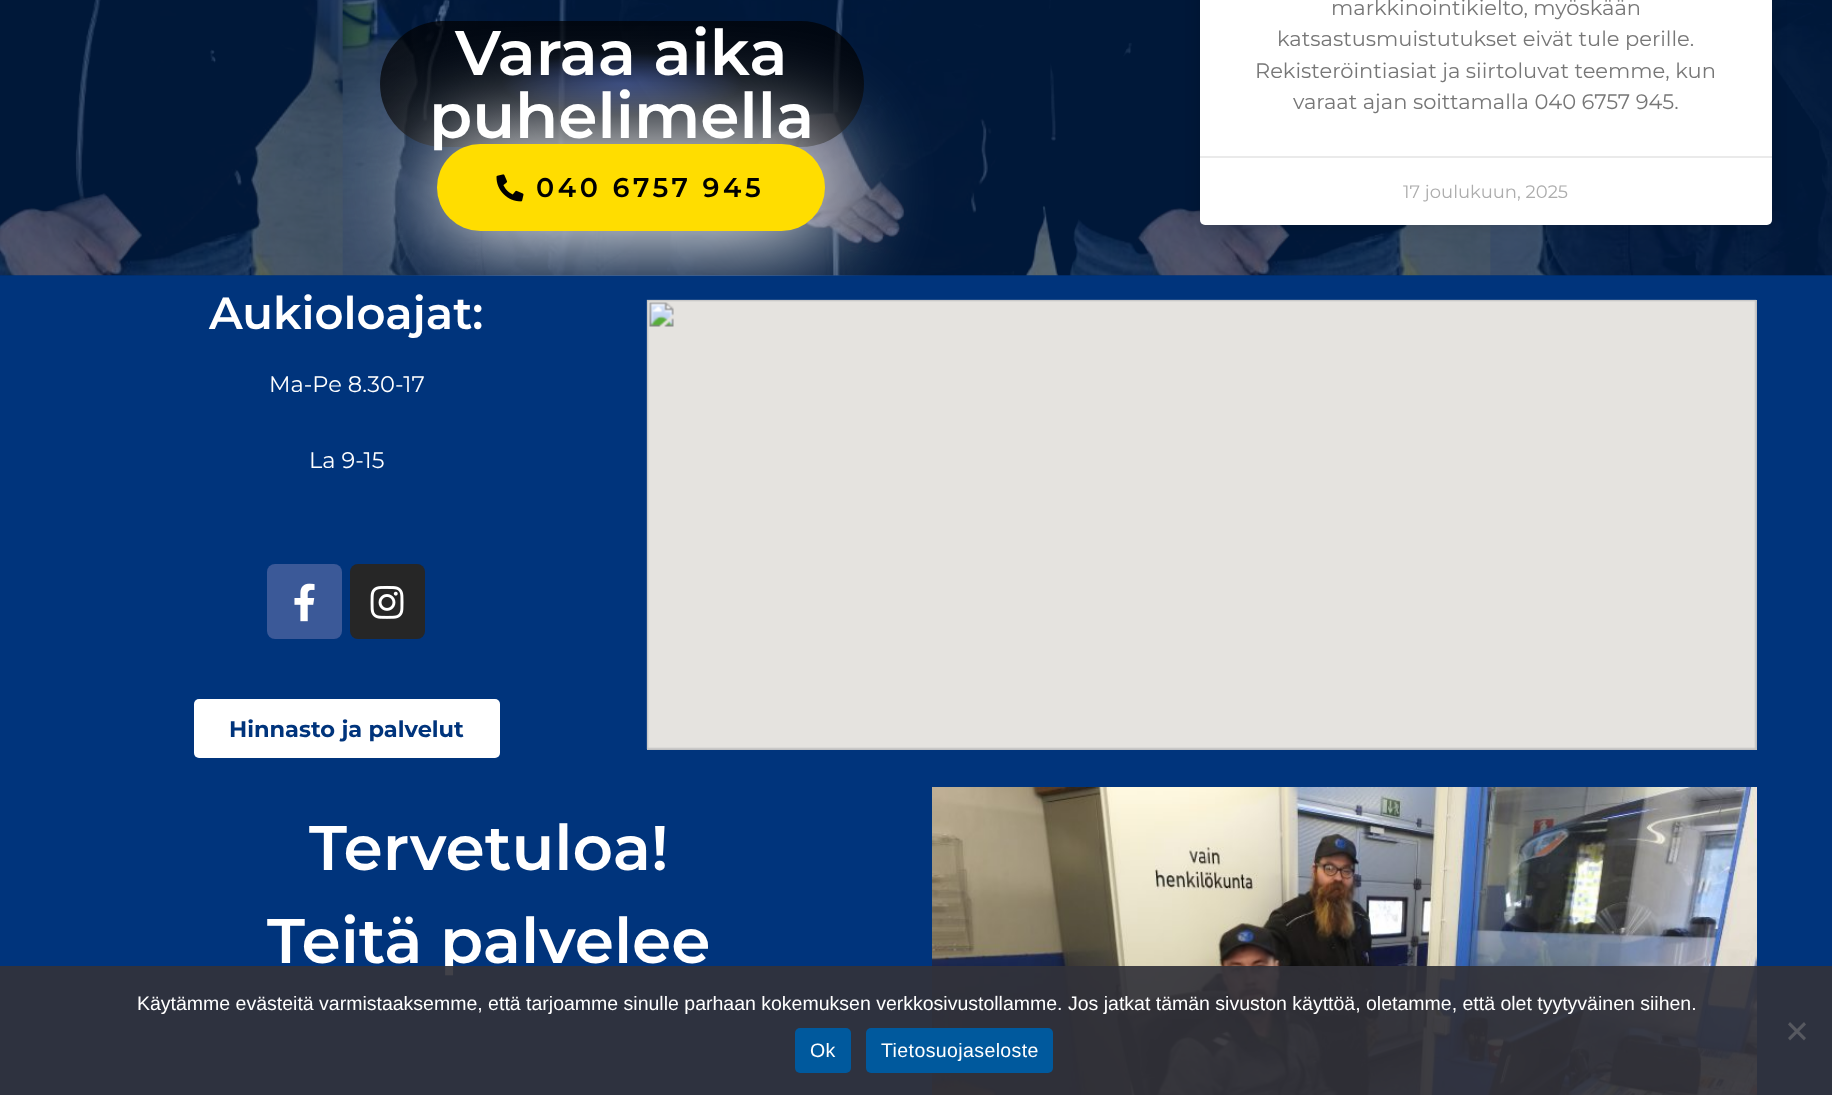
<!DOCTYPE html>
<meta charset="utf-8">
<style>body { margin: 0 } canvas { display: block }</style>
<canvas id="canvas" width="1832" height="1095"></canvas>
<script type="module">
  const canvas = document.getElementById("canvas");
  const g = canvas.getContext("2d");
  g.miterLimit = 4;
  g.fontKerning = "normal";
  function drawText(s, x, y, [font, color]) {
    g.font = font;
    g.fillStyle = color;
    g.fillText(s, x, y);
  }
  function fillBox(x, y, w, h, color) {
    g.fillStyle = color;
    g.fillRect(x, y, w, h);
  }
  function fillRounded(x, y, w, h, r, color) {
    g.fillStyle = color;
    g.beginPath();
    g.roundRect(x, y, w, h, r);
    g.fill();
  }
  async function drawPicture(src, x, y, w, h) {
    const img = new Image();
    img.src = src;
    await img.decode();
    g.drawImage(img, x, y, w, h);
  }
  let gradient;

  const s1 = ["600 63px Montserrat", "#FFFFFF"];
  const s2 = ["600 27px Montserrat", "#000000"];
  const s3 = ["21px Montserrat", "#777777"];
  const s4 = ["18px Montserrat", "#ADADAD"];
  const s5 = ["600 45px Montserrat", "#FFFFFF"];
  const s6 = ["22.5px Montserrat", "#FFFFFF"];
  const s7 = ["bold 22.5px Montserrat", "#00347C"];
  const s8 = ["19.5px Liberation Sans", "#FFFFFF"];

  fillBox(0, 0, 1832, 1095, "#00347C");
  fillBox(0, 0, 1832, 276, "#013277");
  await drawPicture("pic1.png", 0, 0, 1832, 276);
  gradient = g.createRadialGradient(622, 323.73, 0, 622, 323.73, 343);
  gradient.addColorStop(0, "rgba(47, 65, 141, 0.59)");
  gradient.addColorStop(0.35, "rgba(1, 1, 2, 0.72)");
  g.fillStyle = gradient;
  g.beginPath();
  g.roundRect(380, 21, 484, 126, 63);
  g.save();
  g.clip();
  g.scale(1, 89 / 343);
  g.fillRect(0, 0, 1832, 4221);
  g.restore();
  drawText("Varaa aika", 455, 75, s1);
  drawText("puhelimella", 429, 138, s1);
  g.save();
  g.beginPath();
  g.rect(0, 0, 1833, 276);
  g.clip();
  g.filter = "blur(49px)";
  g.beginPath();
  g.roundRect(426, 134, 410, 108, 54);
  g.fill();
  g.filter = "none";
  g.restore();
  fillRounded(437, 144, 388, 87, 43.5, "#FFDD00");
  await drawPicture("pic2.png", 496, 174, 28, 28);
  g.letterSpacing = "3.6px";
  drawText("040 6757 945", 536, 197, s2);
  g.fillStyle = "rgba(0, 0, 0, 0.15)";
  g.filter = "blur(7.5px)";
  g.beginPath();
  g.roundRect(1200, -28, 572, 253, 5);
  g.fill();
  g.filter = "none";
  fillRounded(1200, -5, 572, 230, 5, "#FFFFFF");
  g.letterSpacing = "0px";
  drawText("markkinointikielto, myöskään", 1331, 15, s3);
  drawText("katsastusmuistutukset eivät tule perille.", 1277, 46, s3);
  drawText("Rekisteröintiasiat ja siirtoluvat teemme, kun", 1255, 78, s3);
  drawText("varaat ajan soittamalla 040 6757 945.", 1293, 109, s3);
  fillBox(1200, 156, 572, 2, "#EAEAEA");
  drawText("17 joulukuun, 2025", 1403, 198, s4);
  drawText("Aukioloajat:", 209, 329, s5);
  drawText("Ma-Pe 8.30-17", 269, 392, s6);
  drawText("La 9-15", 309, 468, s6);
  fillRounded(267, 564, 75, 75, 8, "#3B5998");
  await drawPicture("pic3.png", 294, 583, 21, 39);
  fillRounded(350, 564, 75, 75, 8, "#262626");
  await drawPicture("pic4.png", 370, 585, 34, 34);
  fillRounded(194, 699, 306, 59, 5, "#FFFFFF");
  drawText("Hinnasto ja palvelut", 229, 737, s7);
  await drawPicture("pic5.png", 646, 299, 1111, 451);
  drawText("Tervetuloa!", 309, 870, s1);
  drawText("Teitä palvelee", 267, 963, s1);
  await drawPicture("pic6.png", 932, 787, 825, 308);
  fillBox(0, 966, 1832, 129, "rgba(50, 50, 58, 0.92)");
  drawText("Käytämme evästeitä varmistaaksemme, että tarjoamme sinulle parhaan kokemuksen verkkosivustollamme. Jos jatkat tämän sivuston käyttöä, oletamme, että olet tyytyväinen siihen.", 137, 1010, s8);
  g.fillStyle = "#575960";
  g.beginPath();
  g.moveTo(1804, 1022);
  g.lineTo(1806, 1024.5);
  g.lineTo(1790, 1040.5);
  g.lineTo(1788, 1038);
  g.closePath();
  g.fill();
  g.beginPath();
  g.moveTo(1788, 1024.5);
  g.lineTo(1790, 1022);
  g.lineTo(1806, 1038);
  g.lineTo(1804, 1040.5);
  g.closePath();
  g.fill();
  fillRounded(795, 1028, 56, 45, 5, "#00599D");
  g.letterSpacing = "0.4px";
  drawText("Ok", 810, 1057, s8);
  fillRounded(866, 1028, 187, 45, 5, "#00599D");
  drawText("Tietosuojaseloste", 881, 1057, s8);
</script>
